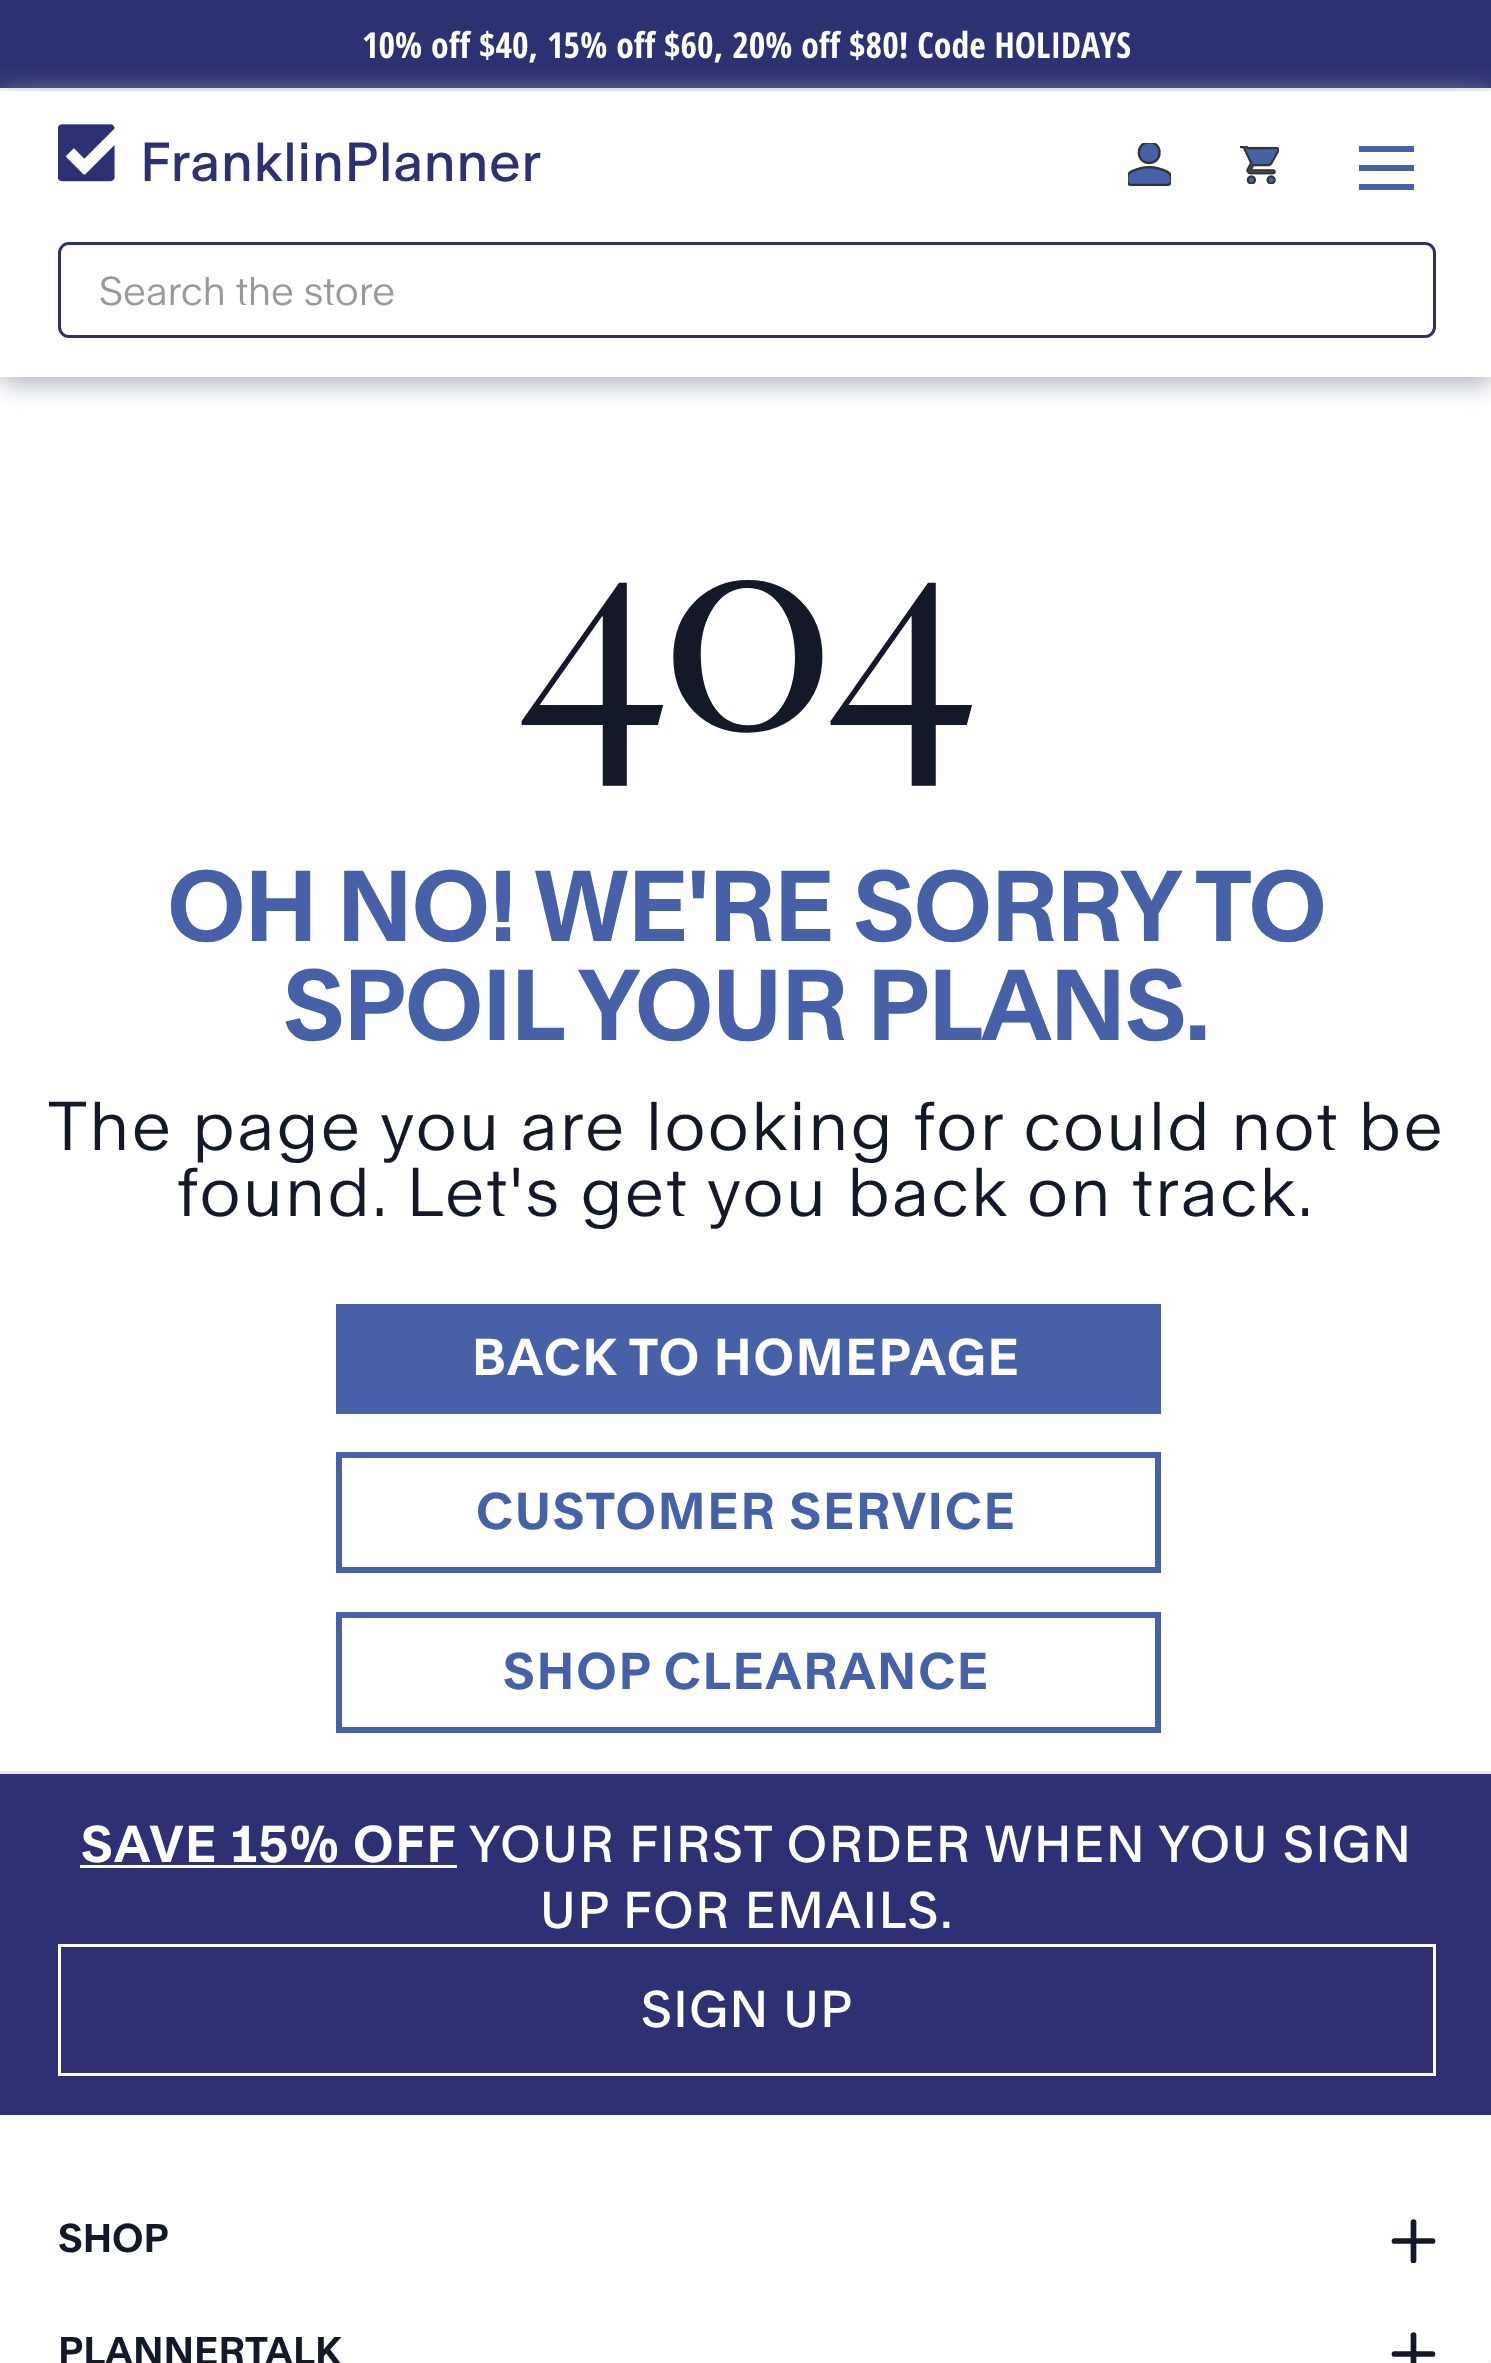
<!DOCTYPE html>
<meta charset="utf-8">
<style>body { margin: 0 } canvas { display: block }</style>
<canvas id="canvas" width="1491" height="2363"></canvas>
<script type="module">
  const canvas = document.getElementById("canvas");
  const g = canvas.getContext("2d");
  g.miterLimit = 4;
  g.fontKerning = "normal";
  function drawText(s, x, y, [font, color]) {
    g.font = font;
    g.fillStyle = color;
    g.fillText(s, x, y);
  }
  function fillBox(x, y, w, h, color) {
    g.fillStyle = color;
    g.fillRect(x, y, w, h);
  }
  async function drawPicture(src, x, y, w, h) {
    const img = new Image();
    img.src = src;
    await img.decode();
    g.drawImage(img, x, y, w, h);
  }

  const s1 = ["bold 35.75px Open Sans Condensed", "#FFFFFF"];
  const s2 = ["500 52.75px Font", "#2D3072"];
  const s3 = ["38.5px Font", "#999999"];
  const s4 = ["500 308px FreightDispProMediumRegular", "#131929"];
  const s5 = ["bold 96.25px Font", "#4761A8"];
  const s6 = ["66px Font", "#131929"];
  const s7 = ["bold 49.5px Font", "#FFFFFF"];
  const s8 = ["bold 49.5px Font", "#4761A8"];
  const s9 = ["500 49.5px Font", "#FFFFFF"];
  const s10 = ["bold 38.5px Font", "#131929"];

  fillBox(0, 0, 1491, 2363, "#FFFFFF");
  fillBox(0, 0, 1491, 88, "#2C3172");
  drawText("10% off $40, 15% off $60, 20% off $80! Code HOLIDAYS", 362, 58, s1);
  g.fillStyle = "#A0A9B3";
  g.filter = "blur(14px)";
  g.beginPath();
  g.rect(0, 96, 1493, 286);
  g.fill();
  g.filter = "none";
  fillBox(0, 91, 1491, 286, "#FFFFFF");
  await drawPicture("pic1.png", 58, 124, 57, 58);
  g.letterSpacing = "0.5px";
  drawText("FranklinPlanner", 140, 181, s2);
  await drawPicture("pic2.png", 1128, 143, 43, 43);
  await drawPicture("pic3.png", 1240, 146, 39, 38);
  fillBox(1359, 165, 55, 6, "#4761A8");
  fillBox(1359, 146, 55, 6, "#4761A8");
  fillBox(1359, 184, 55, 6, "#4761A8");
  g.beginPath();
  g.roundRect(59.5, 243.5, 1375, 93, 9.5);
  g.strokeStyle = "#2D3072";
  g.lineWidth = 3;
  g.stroke();
  g.letterSpacing = "0px";
  drawText("Search the store", 99, 305, s3);
  drawText("404", 519, 729, s4);
  g.letterSpacing = "-1.4px";
  drawText("OH NO! WE'RE SORRY TO", 167, 941, s5);
  drawText("SPOIL YOUR PLANS.", 283, 1040, s5);
  g.letterSpacing = "2.35px";
  drawText("The page you are looking for could not be", 48, 1150, s6);
  drawText("found. Let's get you back on track.", 177, 1216, s6);
  fillBox(336, 1304, 825, 110, "#4761A8");
  g.letterSpacing = "1.8px";
  drawText("BACK TO HOMEPAGE", 472, 1375, s7);
  g.strokeStyle = "#4761A8";
  g.lineWidth = 6;
  g.strokeRect(339, 1455, 819, 115);
  drawText("CUSTOMER SERVICE", 476, 1529, s8);
  g.strokeRect(339, 1615, 819, 115);
  drawText("SHOP CLEARANCE", 503, 1689, s8);
  fillBox(0, 1771, 1491, 3, "#E5E5E5");
  fillBox(0, 1774, 1491, 341, "#2D3072");
  drawText("SAVE 15% OFF", 81, 1862, s7);
  fillBox(80, 1865, 377, 3, "#FFFFFF");
  drawText("YOUR FIRST ORDER WHEN YOU SIGN", 469, 1862, s9);
  drawText("UP FOR EMAILS.", 540, 1928, s9);
  g.strokeStyle = "#FFFFFF";
  g.lineWidth = 3;
  g.strokeRect(59.5, 1945.5, 1375, 129);
  g.letterSpacing = "1.5px";
  drawText("SIGN UP", 641, 2027, s9);
  g.letterSpacing = "0px";
  drawText("SHOP", 58, 2252, s10);
  g.save();
  g.beginPath();
  g.rect(1392, 2219, 44, 44);
  g.clip();
  g.beginPath();
  g.moveTo(1413.5, 2222);
  g.lineTo(1413.5, 2260.5);
  g.strokeStyle = "#131929";
  g.lineWidth = 5.7;
  g.lineCap = "round";
  g.lineJoin = "round";
  g.stroke();
  g.restore();
  g.beginPath();
  g.moveTo(1394.5, 2241);
  g.lineTo(1432.5, 2241);
  g.strokeStyle = "#131929";
  g.lineWidth = 5.7;
  g.lineCap = "round";
  g.lineJoin = "round";
  g.stroke();
  drawText("PLANNERTALK", 58, 2365, s10);
  g.beginPath();
  g.moveTo(1413.5, 2335);
  g.lineTo(1413.5, 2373);
  g.moveTo(1394.5, 2354);
  g.lineTo(1432.5, 2354);
  g.stroke();
  fillBox(1488, 2360, 3, 3, "#F5F5F5");
</script>
